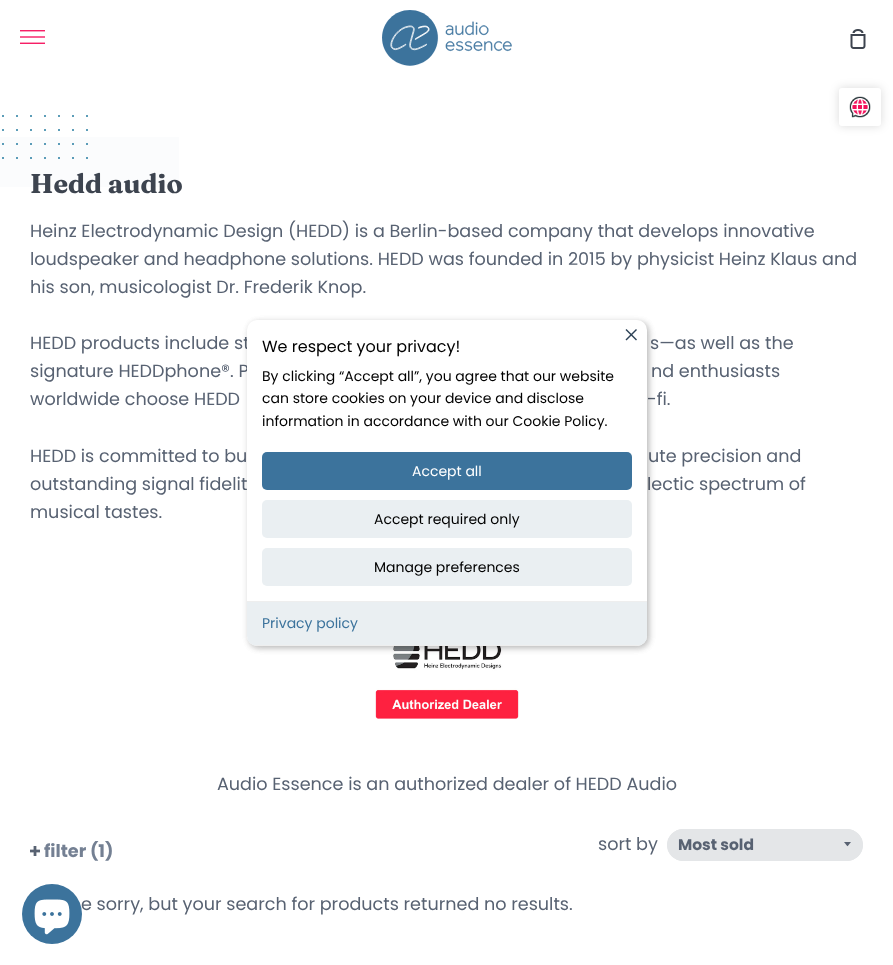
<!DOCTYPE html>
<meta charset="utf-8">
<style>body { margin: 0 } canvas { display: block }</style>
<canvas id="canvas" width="893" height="965"></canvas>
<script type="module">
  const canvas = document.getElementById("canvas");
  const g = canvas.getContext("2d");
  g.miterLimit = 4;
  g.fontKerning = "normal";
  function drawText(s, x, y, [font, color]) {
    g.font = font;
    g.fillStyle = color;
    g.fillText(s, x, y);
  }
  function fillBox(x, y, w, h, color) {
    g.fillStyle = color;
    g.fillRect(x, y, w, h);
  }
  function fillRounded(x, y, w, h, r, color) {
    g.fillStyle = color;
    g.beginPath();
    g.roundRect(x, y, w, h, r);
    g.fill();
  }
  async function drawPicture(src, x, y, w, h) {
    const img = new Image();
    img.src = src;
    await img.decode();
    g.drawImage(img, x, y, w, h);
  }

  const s1 = ["bold 27px Fraunces", "#3D444F"];
  const s2 = ["17.6px Poppins", "#586272"];
  const s3 = ["bold 17.6px Poppins", "#748093"];
  const s4 = ["bold 15.5px Poppins", "#586272"];
  const s5 = ["16px Poppins", "#000000"];
  const s6 = ["14px Poppins", "#000000"];
  const s7 = ["14px Poppins", "#FFFFFF"];
  const s8 = ["14px Poppins", "#3C739C"];

  fillBox(0, 0, 893, 965, "#FFFFFF");
  await drawPicture("pic1.png", 20, 30, 25, 14);
  await drawPicture("pic2.png", 382, 10, 130, 56);
  await drawPicture("pic3.png", 850, 29, 16, 20);
  g.fillStyle = "rgba(0, 0, 0, 0.15)";
  g.filter = "blur(5px)";
  g.beginPath();
  g.roundRect(839, 88, 42, 38, 3);
  g.fill();
  g.filter = "none";
  fillRounded(839, 88, 42, 38, 3, "#FFFFFF");
  await drawPicture("pic4.png", 849, 96, 22, 22);
  g.fillStyle = "#267DA1";
  g.beginPath();
  g.arc(3, 116, 1, 0, Math.PI * 2);
  g.fill();
  g.beginPath();
  g.arc(17, 116, 1, 0, Math.PI * 2);
  g.fill();
  g.beginPath();
  g.arc(31, 116, 1, 0, Math.PI * 2);
  g.fill();
  g.beginPath();
  g.arc(45, 116, 1, 0, Math.PI * 2);
  g.fill();
  g.beginPath();
  g.arc(59, 116, 1, 0, Math.PI * 2);
  g.fill();
  g.beginPath();
  g.arc(73, 116, 1, 0, Math.PI * 2);
  g.fill();
  g.beginPath();
  g.arc(87, 116, 1, 0, Math.PI * 2);
  g.fill();
  g.beginPath();
  g.arc(3, 130, 1, 0, Math.PI * 2);
  g.fill();
  g.beginPath();
  g.arc(17, 130, 1, 0, Math.PI * 2);
  g.fill();
  g.beginPath();
  g.arc(31, 130, 1, 0, Math.PI * 2);
  g.fill();
  g.beginPath();
  g.arc(45, 130, 1, 0, Math.PI * 2);
  g.fill();
  g.beginPath();
  g.arc(59, 130, 1, 0, Math.PI * 2);
  g.fill();
  g.beginPath();
  g.arc(73, 130, 1, 0, Math.PI * 2);
  g.fill();
  g.beginPath();
  g.arc(87, 130, 1, 0, Math.PI * 2);
  g.fill();
  fillBox(0, 137, 179, 50, "#FBFCFD");
  g.fillStyle = "#267DA1";
  g.beginPath();
  g.arc(3, 144, 1, 0, Math.PI * 2);
  g.fill();
  g.beginPath();
  g.arc(17, 144, 1, 0, Math.PI * 2);
  g.fill();
  g.beginPath();
  g.arc(31, 144, 1, 0, Math.PI * 2);
  g.fill();
  g.beginPath();
  g.arc(45, 144, 1, 0, Math.PI * 2);
  g.fill();
  g.beginPath();
  g.arc(59, 144, 1, 0, Math.PI * 2);
  g.fill();
  g.beginPath();
  g.arc(73, 144, 1, 0, Math.PI * 2);
  g.fill();
  g.beginPath();
  g.arc(87, 144, 1, 0, Math.PI * 2);
  g.fill();
  g.beginPath();
  g.arc(3, 158, 1, 0, Math.PI * 2);
  g.fill();
  g.beginPath();
  g.arc(17, 158, 1, 0, Math.PI * 2);
  g.fill();
  g.beginPath();
  g.arc(31, 158, 1, 0, Math.PI * 2);
  g.fill();
  g.beginPath();
  g.arc(45, 158, 1, 0, Math.PI * 2);
  g.fill();
  g.beginPath();
  g.arc(59, 158, 1, 0, Math.PI * 2);
  g.fill();
  g.beginPath();
  g.arc(73, 158, 1, 0, Math.PI * 2);
  g.fill();
  g.beginPath();
  g.arc(87, 158, 1, 0, Math.PI * 2);
  g.fill();
  drawText("Hedd audio", 30, 193, s1);
  drawText("Heinz Electrodynamic Design (HEDD) is a Berlin-based company that develops innovative", 30, 237, s2);
  drawText("loudspeaker and headphone solutions. HEDD was founded in 2015 by physicist Heinz Klaus and", 30, 265, s2);
  drawText("his son, musicologist Dr. Frederik Knop.", 30, 293, s2);
  drawText("HEDD products include st", 30, 349, s2);
  drawText("s—as well as the", 650, 349, s2);
  drawText("signature HEDDphone®. P", 30, 377, s2);
  drawText("nd enthusiasts", 651, 377, s2);
  drawText("worldwide choose HEDD", 30, 405, s2);
  drawText("-fi.", 647, 405, s2);
  drawText("HEDD is committed to bu", 30, 462, s2);
  drawText("ute precision and", 648, 462, s2);
  drawText("outstanding signal fidelit", 30, 490, s2);
  drawText("lectic spectrum of", 647, 490, s2);
  drawText("musical tastes.", 30, 518, s2);
  await drawPicture("pic5.png", 375, 646, 144, 73);
  drawText("Audio Essence is an authorized dealer of HEDD Audio", 217, 790, s2);
  await drawPicture("pic6.png", 30, 846, 10, 10);
  drawText("filter (1)", 44, 857, s3);
  drawText("sort by", 598, 850, s2);
  fillRounded(667, 829, 196, 32, 16, "#E4E6E8");
  g.fillStyle = "#586272";
  g.beginPath();
  g.moveTo(844, 842);
  g.bezierCurveTo(848.5, 847.5, 846.5, 847.5, 851, 842);
  g.closePath();
  g.fill();
  g.beginPath();
  g.roundRect(667.5, 829.5, 195, 31, 15.5);
  g.strokeStyle = "#E4E6E8";
  g.stroke();
  drawText("Most sold", 678, 850, s4);
  drawText("e sorry, but your search for products returned no results.", 81, 910, s2);
  g.fillStyle = "rgba(0, 0, 0, 0.15)";
  g.filter = "blur(3px)";
  g.beginPath();
  g.roundRect(249, 322, 400, 326, 10);
  g.fill();
  g.filter = "none";
  g.filter = "blur(3px)";
  g.beginPath();
  g.roundRect(249, 322, 400, 326, 10);
  g.fill();
  g.filter = "none";
  fillRounded(247, 320, 400, 326, 10, "#FFFFFF");
  g.fillStyle = "#2D4156";
  g.beginPath();
  g.moveTo(636, 329);
  g.lineTo(637, 330);
  g.lineTo(626.5, 340.5);
  g.lineTo(625.5, 339.5);
  g.closePath();
  g.fill();
  g.beginPath();
  g.moveTo(625.5, 330);
  g.lineTo(626.5, 329);
  g.lineTo(637, 339.5);
  g.lineTo(636, 340.5);
  g.closePath();
  g.fill();
  drawText("We respect your privacy!", 262, 352, s5);
  drawText("By clicking “Accept all”, you agree that our website", 262, 381, s6);
  drawText("can store cookies on your device and disclose", 262, 403, s6);
  drawText("information in accordance with our Cookie Policy.", 262, 426, s6);
  fillRounded(262, 452, 370, 38, 5, "#3C739C");
  drawText("Accept all", 412, 476, s7);
  fillRounded(262, 500, 370, 38, 5, "#EAEFF2");
  drawText("Accept required only", 374, 524, s6);
  fillRounded(262, 548, 370, 38, 5, "#EAEFF2");
  drawText("Manage preferences", 374, 572, s6);
  g.fillStyle = "#EAEFF2";
  g.beginPath();
  g.roundRect(247, 601, 400, 45, [0, 0, 10, 10]);
  g.fill();
  fillBox(247, 601, 400, 1, "#EEEEEE");
  g.save();
  g.beginPath();
  g.roundRect(247, 320, 400, 326, 10);
  g.clip();
  fillBox(247, 645, 400, 1, "#EEEEEE");
  g.restore();
  drawText("Privacy policy", 262, 628, s8);
  g.beginPath();
  g.arc(52, 914, 30, 0, Math.PI * 2);
  g.fill();
  await drawPicture("pic7.png", 34, 899, 36, 36);
</script>
